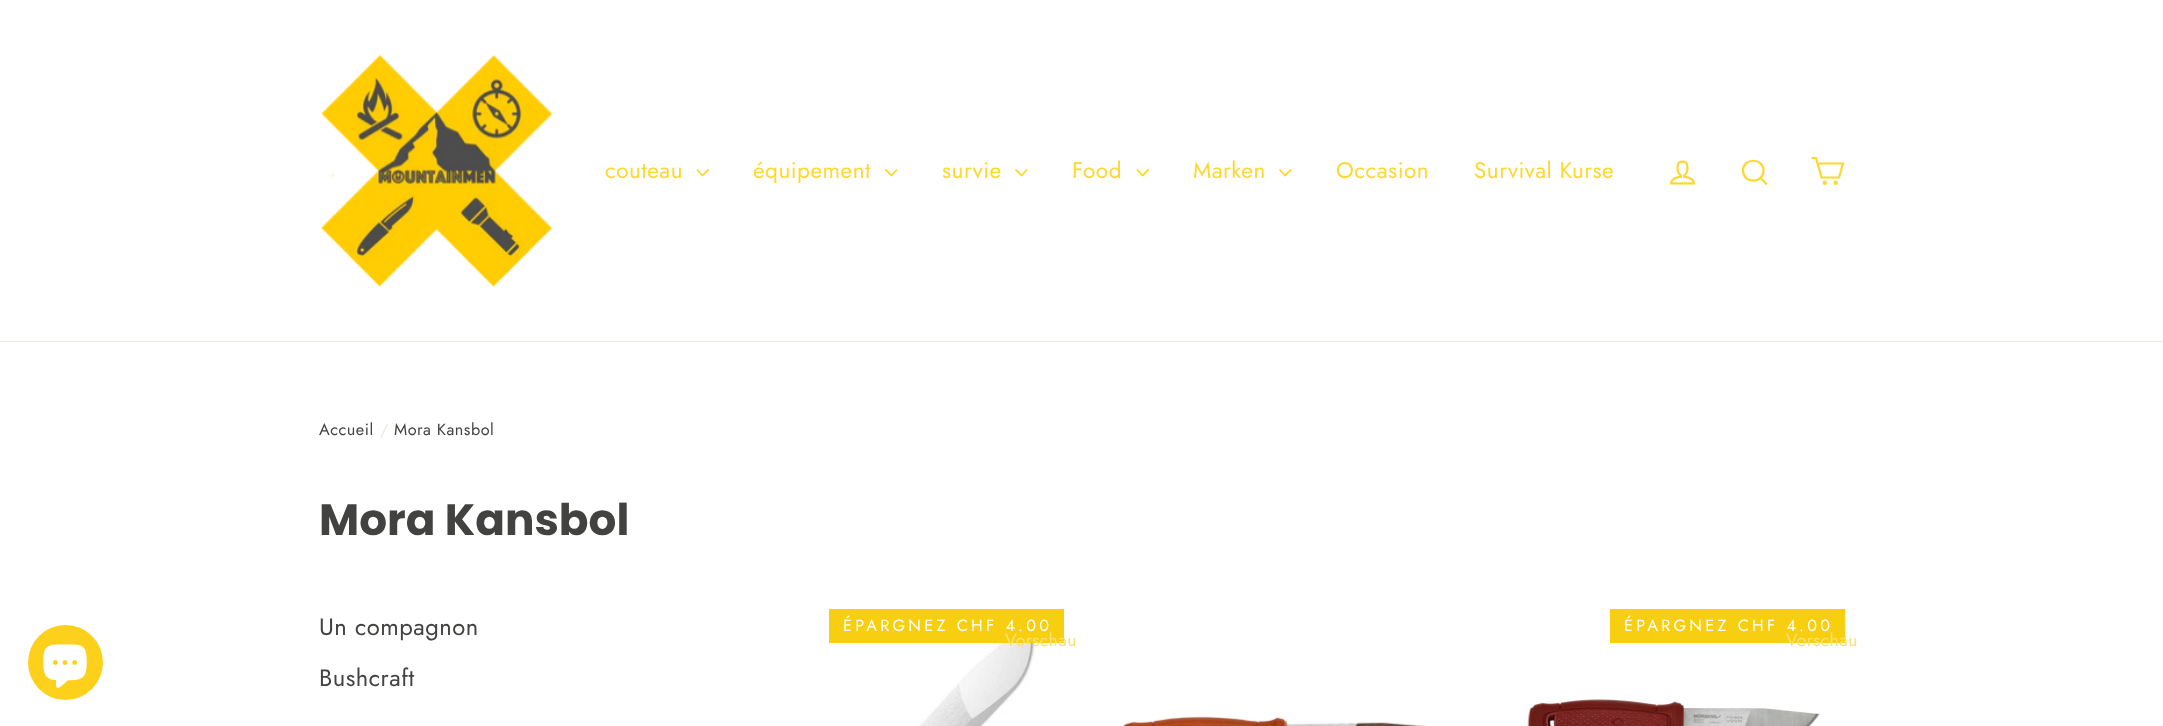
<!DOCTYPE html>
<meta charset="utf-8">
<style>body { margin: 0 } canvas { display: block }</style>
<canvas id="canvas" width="2163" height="726"></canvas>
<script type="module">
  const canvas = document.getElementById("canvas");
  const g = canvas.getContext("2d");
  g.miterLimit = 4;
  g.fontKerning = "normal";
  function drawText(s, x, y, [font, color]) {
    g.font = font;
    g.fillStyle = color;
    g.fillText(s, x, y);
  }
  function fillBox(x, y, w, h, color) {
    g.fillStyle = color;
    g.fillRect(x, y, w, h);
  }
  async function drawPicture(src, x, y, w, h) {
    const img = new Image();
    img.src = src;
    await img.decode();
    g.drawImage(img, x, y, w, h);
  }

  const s1 = ["22.5px Jost", "#FDD82E"];
  const s2 = ["16.25px Jost", "#424241"];
  const s3 = ["16.25px Jost", "#E8E8E1"];
  const s4 = ["bold 43.75px Poppins", "#424241"];
  const s5 = ["23.75px Jost", "#424241"];
  const s6 = ["16.25px Jost", "#FFFFFF"];
  const s7 = ["17.5px Jost", "#F8E177"];

  fillBox(0, 0, 2163, 726, "#FFFFFF");
  g.fillStyle = "#FDD11B";
  g.beginPath();
  g.arc(65.5, 662.5, 37.5, 0, Math.PI * 2);
  g.fill();
  await drawPicture("pic1.png", 43, 644, 44, 44);
  fillBox(0, 341, 2163, 1, "#E8E8E1");
  await drawPicture("pic2.png", 321, 54, 232, 234);
  g.letterSpacing = "0.5px";
  drawText("couteau", 605, 178, s1);
  g.beginPath();
  g.moveTo(697, 169.5);
  g.lineTo(702.5, 175.5);
  g.lineTo(708.5, 169.5);
  g.strokeStyle = "#FDD82E";
  g.lineWidth = 1.8;
  g.stroke();
  drawText("équipement", 753, 178, s1);
  g.beginPath();
  g.moveTo(885.5, 169.5);
  g.lineTo(891.5, 175.5);
  g.lineTo(897, 169.5);
  g.stroke();
  drawText("survie", 942, 178, s1);
  g.beginPath();
  g.moveTo(1015.5, 169.5);
  g.lineTo(1021.5, 175.5);
  g.lineTo(1027, 169.5);
  g.stroke();
  drawText("Food", 1072, 178, s1);
  g.beginPath();
  g.moveTo(1137, 169.5);
  g.lineTo(1142.5, 175.5);
  g.lineTo(1148.5, 169.5);
  g.stroke();
  drawText("Marken", 1193, 178, s1);
  g.beginPath();
  g.moveTo(1279.5, 169.5);
  g.lineTo(1285, 175.5);
  g.lineTo(1291, 169.5);
  g.stroke();
  drawText("Occasion", 1336, 178, s1);
  drawText("Survival Kurse", 1474, 178, s1);
  await drawPicture("pic3.png", 1669, 160, 27, 25);
  g.beginPath();
  g.moveTo(1763.5, 170.5);
  g.bezierCurveTo(1763.5, 184, 1743, 184, 1743, 170.5);
  g.bezierCurveTo(1743, 157.5, 1763.5, 157.5, 1763.5, 170.5);
  g.closePath();
  g.moveTo(1767, 184.5);
  g.lineTo(1760.5, 178);
  g.lineWidth = 2.2;
  g.stroke();
  g.beginPath();
  g.moveTo(1817.5, 163.5);
  g.lineTo(1843, 163.5);
  g.lineTo(1839, 177.5);
  g.lineTo(1821.5, 177.5);
  g.lineTo(1816, 158);
  g.lineTo(1811.5, 158);
  g.stroke();
  g.beginPath();
  g.arc(1824.8, 182.7, 1.1, 0, Math.PI * 2);
  g.stroke();
  g.beginPath();
  g.arc(1835.7, 182.7, 1.1, 0, Math.PI * 2);
  g.stroke();
  drawText("Accueil", 319, 435, s2);
  drawText("/", 380, 435, s3);
  drawText("Mora Kansbol", 394, 435, s2);
  g.letterSpacing = "0px";
  drawText("Mora Kansbol", 319, 535, s4);
  g.letterSpacing = "0.5px";
  drawText("Un compagnon", 319, 635, s5);
  drawText("Bushcraft", 319, 686, s5);
  fillBox(829, 609, 235, 34, "#F8CE10");
  g.letterSpacing = "3.25px";
  drawText("ÉPARGNEZ CHF 4.00", 843, 631, s6);
  await drawPicture("pic4.png", 919, 643, 117, 83);
  g.letterSpacing = "0.5px";
  drawText("Vorschau", 1005, 646, s7);
  fillBox(1610, 609, 235, 34, "#F8CE10");
  g.letterSpacing = "3.25px";
  drawText("ÉPARGNEZ CHF 4.00", 1624, 631, s6);
  g.letterSpacing = "0.5px";
  drawText("Vorschau", 1786, 646, s7);
  await drawPicture("pic5.png", 1527, 699, 293, 27);
  await drawPicture("pic6.png", 1123, 716, 304, 10);
</script>
